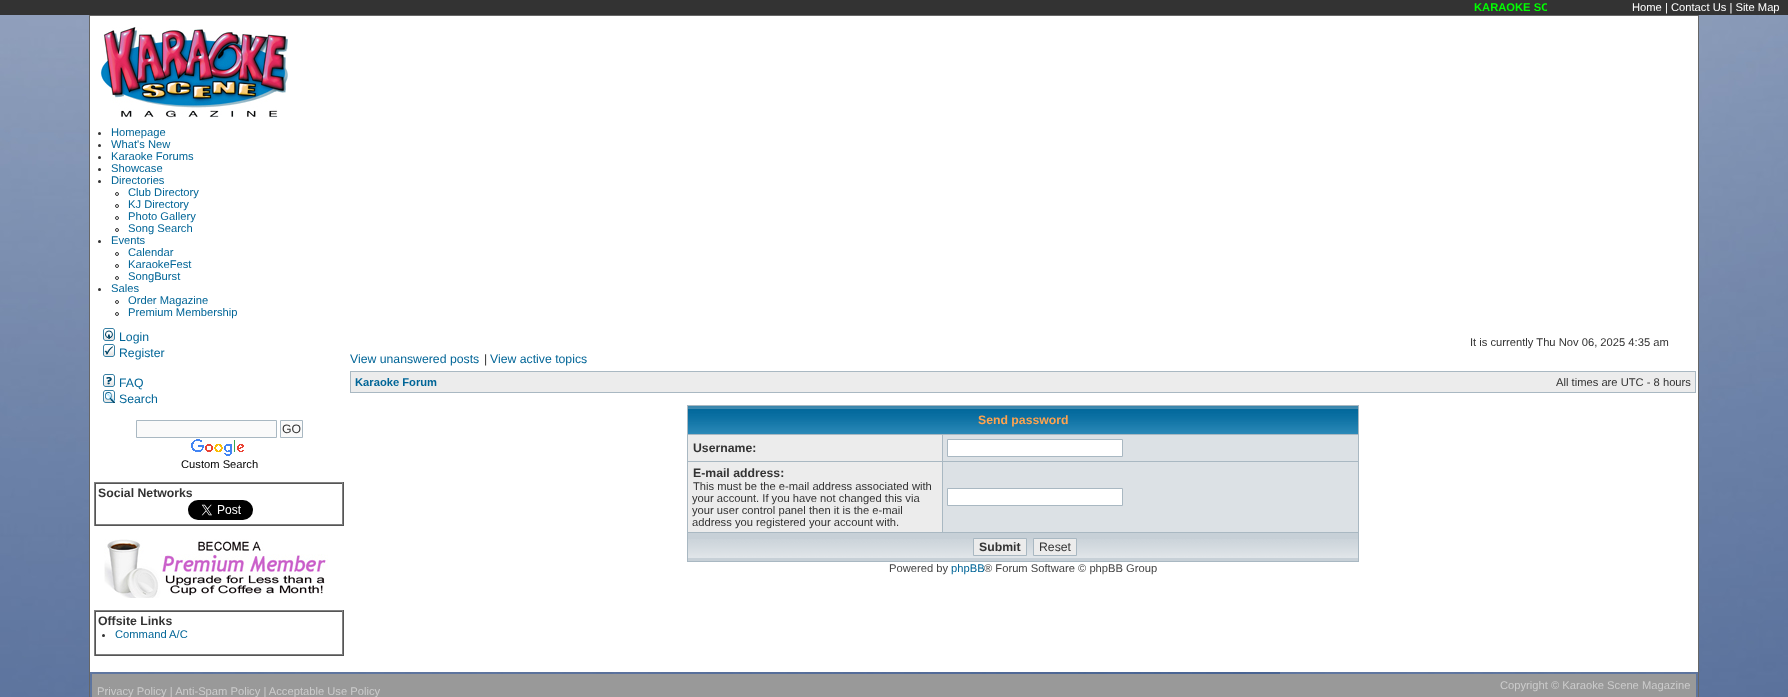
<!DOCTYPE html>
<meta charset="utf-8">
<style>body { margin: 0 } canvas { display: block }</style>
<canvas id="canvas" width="1788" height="697"></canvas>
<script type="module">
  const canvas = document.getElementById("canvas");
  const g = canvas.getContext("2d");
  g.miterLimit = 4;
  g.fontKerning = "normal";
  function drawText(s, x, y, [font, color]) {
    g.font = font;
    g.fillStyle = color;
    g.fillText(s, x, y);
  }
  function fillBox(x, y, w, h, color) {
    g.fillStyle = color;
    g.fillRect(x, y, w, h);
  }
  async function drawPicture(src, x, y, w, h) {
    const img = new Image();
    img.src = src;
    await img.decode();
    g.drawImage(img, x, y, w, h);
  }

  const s1 = ["bold 11.2px Liberation Sans", "#00FF00"];
  const s2 = ["11.2px Liberation Sans", "#FFFFFF"];
  const s3 = ["11.2px Liberation Sans", "#006597"];
  const s4 = ["12.25px Liberation Sans", "#006597"];
  const s5 = ["12.25px Liberation Sans", "#333333"];
  const s6 = ["11.2px Liberation Sans", "#000000"];
  const s7 = ["bold 12.25px Liberation Sans", "#333333"];
  const s8 = ["11.2px Liberation Sans", "#333333"];
  const s9 = ["bold 11.2px Liberation Sans", "#006597"];
  const s10 = ["bold 12.25px Liberation Sans", "#FFA34F"];
  const s11 = ["11.2px Liberation Sans", "#444444"];
  const s12 = ["11.2px Liberation Sans", "#CCCCCC"];

  fillBox(0, 0, 1788, 697, "#FFFFFF");
  await drawPicture("pic1.png", 0, 15, 1788, 682);
  fillBox(0, 0, 1788, 15, "#333333");
  g.save();
  g.beginPath();
  g.rect(2, 1, 1545, 12);
  g.clip();
  drawText("KARAOKE SC", 1474, 11, s1);
  g.restore();
  drawText("Home | Contact Us | Site Map", 1632, 11, s2);
  g.strokeStyle = "#666666";
  g.strokeRect(89.5, 15.5, 1609, 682);
  fillBox(90, 16, 1608, 656, "#FFFFFF");
  await drawPicture("pic2.png", 100, 27, 188, 91);
  g.fillStyle = "#333333";
  g.beginPath();
  g.arc(99.5, 133.5, 1.5, 0, Math.PI * 2);
  g.fill();
  drawText("Homepage", 111, 136, s3);
  g.fillStyle = "#333333";
  g.beginPath();
  g.arc(99.5, 145.5, 1.5, 0, Math.PI * 2);
  g.fill();
  drawText("What's New", 111, 148, s3);
  g.fillStyle = "#333333";
  g.beginPath();
  g.arc(99.5, 157.5, 1.5, 0, Math.PI * 2);
  g.fill();
  drawText("Karaoke Forums", 111, 160, s3);
  g.fillStyle = "#333333";
  g.beginPath();
  g.arc(99.5, 169.5, 1.5, 0, Math.PI * 2);
  g.fill();
  drawText("Showcase", 111, 172, s3);
  g.fillStyle = "#333333";
  g.beginPath();
  g.arc(99.5, 181.5, 1.5, 0, Math.PI * 2);
  g.fill();
  drawText("Directories", 111, 184, s3);
  g.beginPath();
  g.arc(117, 194, 1.5, 0, Math.PI * 2);
  g.strokeStyle = "#333333";
  g.stroke();
  drawText("Club Directory", 128, 196, s3);
  g.beginPath();
  g.arc(117, 206, 1.5, 0, Math.PI * 2);
  g.stroke();
  drawText("KJ Directory", 128, 208, s3);
  g.beginPath();
  g.arc(117, 218, 1.5, 0, Math.PI * 2);
  g.stroke();
  drawText("Photo Gallery", 128, 220, s3);
  g.beginPath();
  g.arc(117, 230, 1.5, 0, Math.PI * 2);
  g.stroke();
  drawText("Song Search", 128, 232, s3);
  g.fillStyle = "#333333";
  g.beginPath();
  g.arc(99.5, 241.5, 1.5, 0, Math.PI * 2);
  g.fill();
  drawText("Events", 111, 244, s3);
  g.beginPath();
  g.arc(117, 254, 1.5, 0, Math.PI * 2);
  g.stroke();
  drawText("Calendar", 128, 256, s3);
  g.beginPath();
  g.arc(117, 266, 1.5, 0, Math.PI * 2);
  g.stroke();
  drawText("KaraokeFest", 128, 268, s3);
  g.beginPath();
  g.arc(117, 278, 1.5, 0, Math.PI * 2);
  g.stroke();
  drawText("SongBurst", 128, 280, s3);
  g.fillStyle = "#333333";
  g.beginPath();
  g.arc(99.5, 289.5, 1.5, 0, Math.PI * 2);
  g.fill();
  drawText("Sales", 111, 292, s3);
  g.beginPath();
  g.arc(117, 302, 1.5, 0, Math.PI * 2);
  g.stroke();
  drawText("Order Magazine", 128, 304, s3);
  g.beginPath();
  g.arc(117, 314, 1.5, 0, Math.PI * 2);
  g.stroke();
  drawText("Premium Membership", 128, 316, s3);
  await drawPicture("pic3.png", 103, 328, 12, 13);
  drawText("Login", 119, 341, s4);
  await drawPicture("pic4.png", 103, 344, 12, 13);
  drawText("Register", 119, 357, s4);
  await drawPicture("pic5.png", 103, 374, 12, 13);
  drawText("FAQ", 119, 387, s4);
  await drawPicture("pic6.png", 103, 390, 12, 13);
  drawText("Search", 119, 403, s4);
  g.fillStyle = "#FAFAFA";
  g.beginPath();
  g.rect(136.5, 420.5, 140, 17);
  g.fill();
  g.strokeStyle = "#A9B8C2";
  g.stroke();
  g.beginPath();
  g.rect(280.5, 420.5, 22, 17);
  g.fill();
  g.stroke();
  drawText("GO", 282, 433, s5);
  await drawPicture("pic7.png", 191, 439, 53, 17);
  drawText("Custom Search", 181, 468, s6);
  fillBox(94, 482, 250, 1, "#808080");
  fillBox(343, 482, 1, 44, "#555555");
  fillBox(94, 525, 250, 1, "#555555");
  fillBox(94, 482, 1, 44, "#808080");
  fillBox(95, 483, 248, 1, "#555555");
  fillBox(342, 483, 1, 42, "#808080");
  fillBox(95, 524, 248, 1, "#808080");
  fillBox(95, 483, 1, 42, "#555555");
  drawText("Social Networks", 98, 497, s7);
  await drawPicture("pic8.png", 188, 500, 65, 20);
  await drawPicture("pic9.png", 104, 539, 224, 59);
  fillBox(94, 610, 250, 1, "#808080");
  fillBox(343, 610, 1, 46, "#555555");
  fillBox(94, 655, 250, 1, "#555555");
  fillBox(94, 610, 1, 46, "#808080");
  fillBox(95, 611, 248, 1, "#555555");
  fillBox(342, 611, 1, 44, "#808080");
  fillBox(95, 654, 248, 1, "#808080");
  fillBox(95, 611, 1, 44, "#555555");
  drawText("Offsite Links", 98, 625, s7);
  g.beginPath();
  g.arc(103.5, 635.5, 1.5, 0, Math.PI * 2);
  g.fill();
  drawText("Command A/C", 115, 638, s3);
  drawText("It is currently Thu Nov 06, 2025 4:35 am", 1470, 346, s8);
  drawText("View unanswered posts", 350, 363, s4);
  drawText("|", 484, 363, s5);
  drawText("View active topics", 490, 363, s4);
  fillBox(350, 371, 1346, 22, "#A9B8C2");
  fillBox(351, 372, 1344, 20, "#ECECEC");
  drawText("Karaoke Forum", 355, 386, s9);
  drawText("All times are UTC - 8 hours", 1556, 386, s8);
  fillBox(687, 405, 672, 157, "#A9B8C2");
  await drawPicture("pic10.png", 688, 406, 670, 28);
  drawText("Send password", 978, 424, s10);
  fillBox(688, 435, 254, 26, "#ECECEC");
  drawText("Username:", 693, 452, s7);
  fillBox(943, 435, 415, 26, "#DCE1E5");
  g.fillStyle = "#FFFFFF";
  g.beginPath();
  g.rect(947.5, 439.5, 175, 17);
  g.fill();
  g.stroke();
  fillBox(688, 462, 254, 70, "#ECECEC");
  drawText("E-mail address:", 693, 477, s7);
  drawText("This must be the e-mail address associated with", 693, 490, s8);
  drawText("your account. If you have not changed this via", 692, 502, s8);
  drawText("your user control panel then it is the e-mail", 692, 514, s8);
  drawText("address you registered your account with.", 692, 526, s8);
  fillBox(943, 462, 415, 70, "#DCE1E5");
  g.fillStyle = "#FFFFFF";
  g.beginPath();
  g.rect(947.5, 488.5, 175, 17);
  g.fill();
  g.stroke();
  fillBox(688, 533, 670, 28, "#C7D0D7");
  await drawPicture("pic11.png", 688, 539, 670, 19);
  g.fillStyle = "#ECECEC";
  g.beginPath();
  g.rect(973.5, 538.5, 53, 17);
  g.fill();
  g.stroke();
  drawText("Submit", 979, 551, s7);
  g.fillStyle = "#ECECEC";
  g.beginPath();
  g.rect(1033.5, 538.5, 43, 17);
  g.fill();
  g.stroke();
  drawText("Reset", 1039, 551, s5);
  drawText("Powered by", 889, 572, s11);
  drawText("phpBB", 951, 572, s3);
  drawText("® Forum Software © phpBB Group", 984, 572, s11);
  fillBox(92, 674, 1604, 23, "#999999");
  drawText("Privacy Policy | Anti-Spam Policy | Acceptable Use Policy", 97, 695, s12);
  drawText("Copyright © Karaoke Scene Magazine", 1500, 689, s12);
</script>
